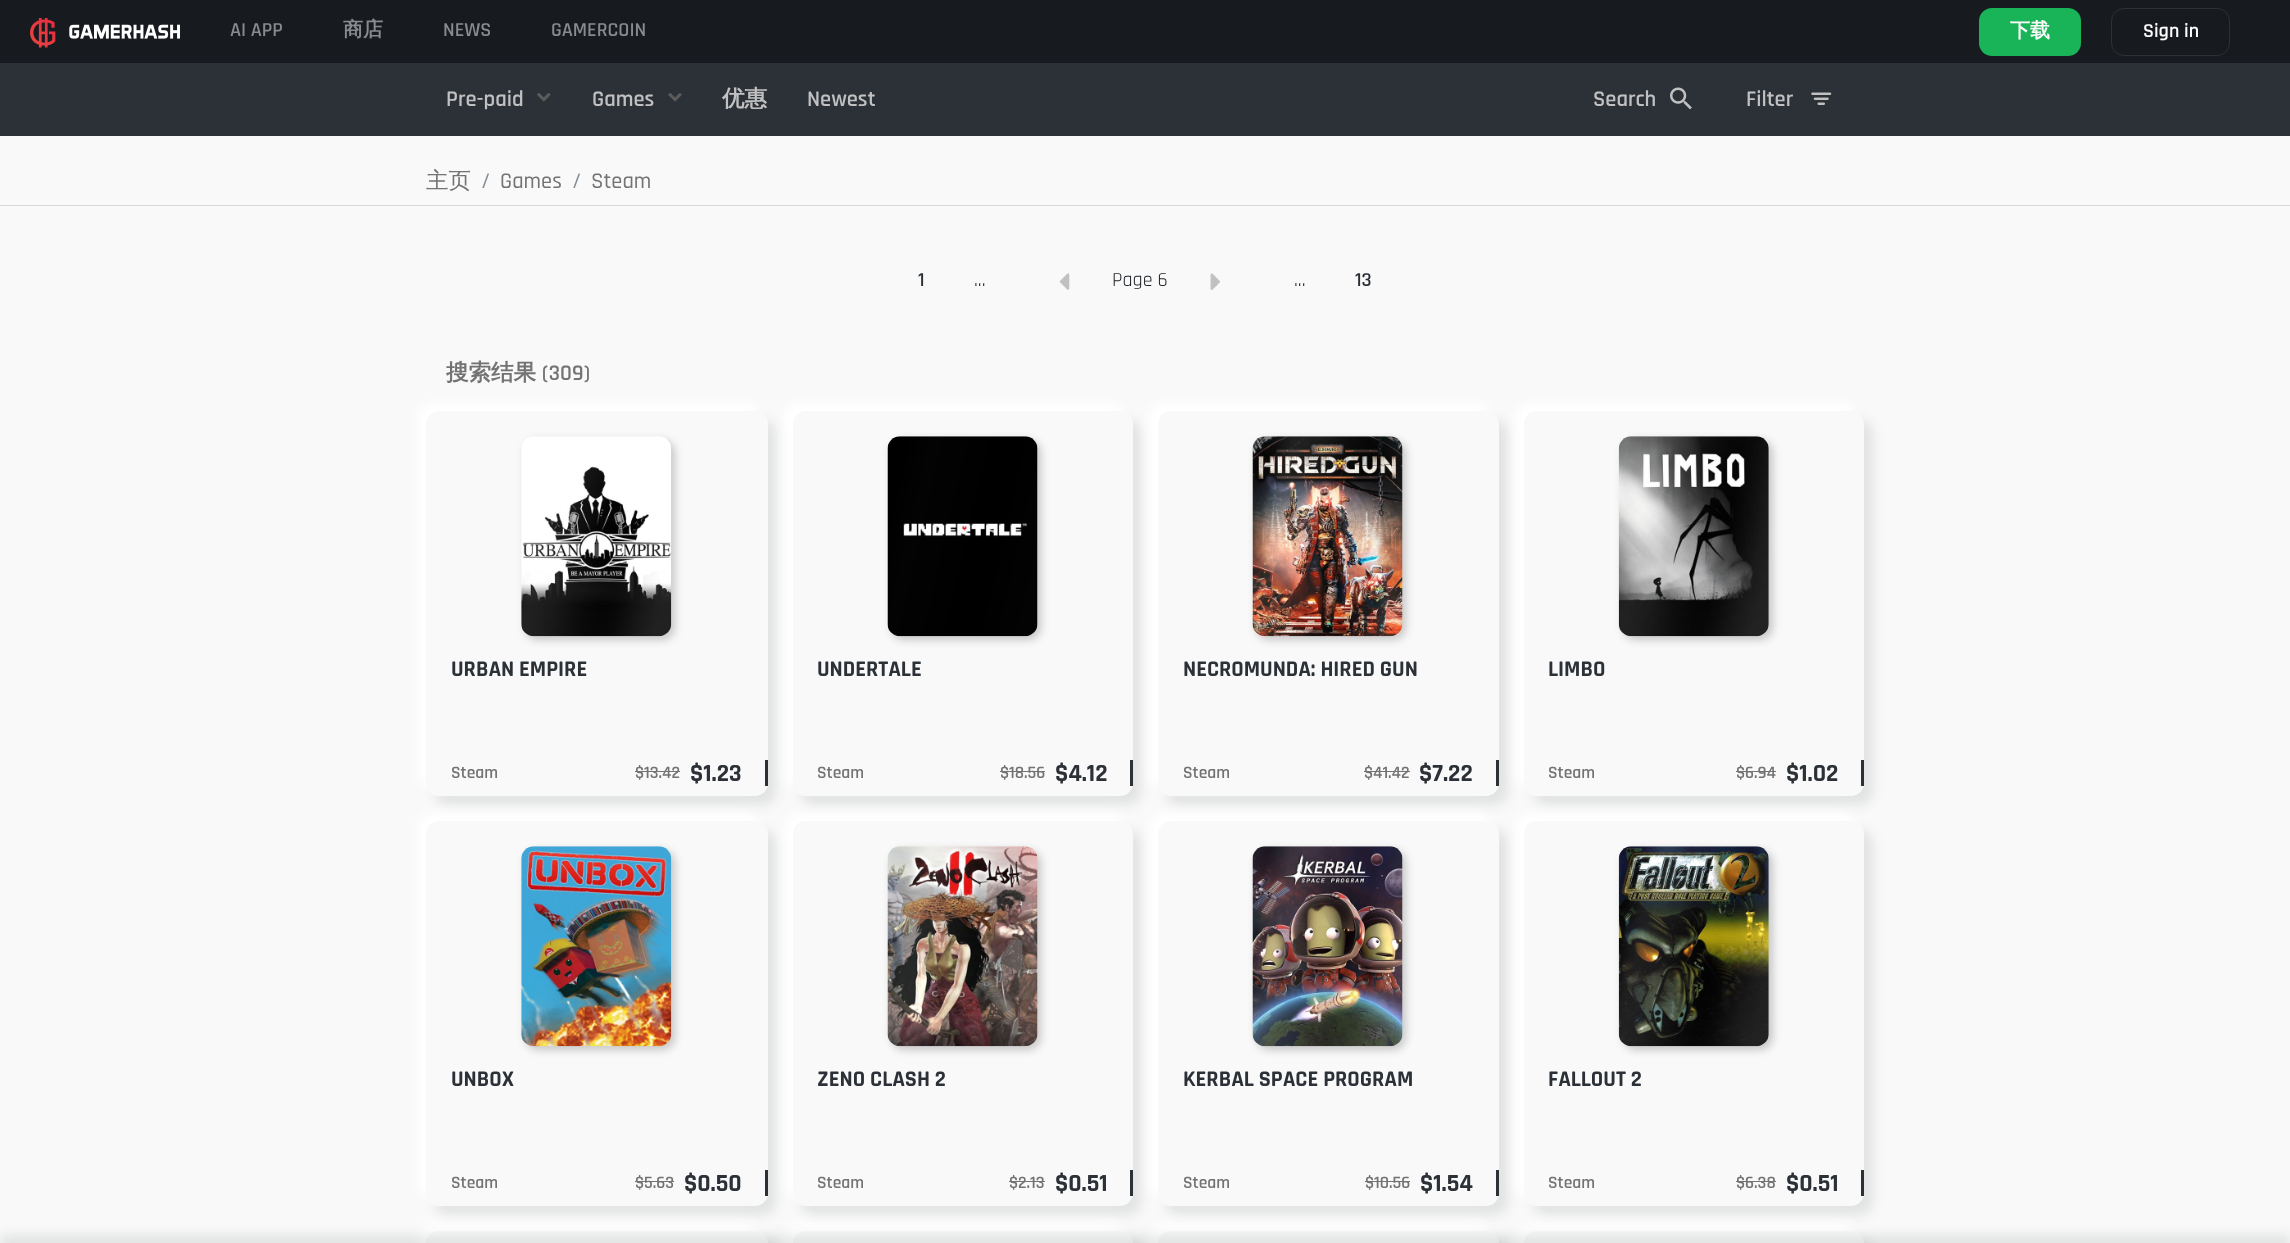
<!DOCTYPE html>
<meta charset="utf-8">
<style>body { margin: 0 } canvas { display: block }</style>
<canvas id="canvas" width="2290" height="1243"></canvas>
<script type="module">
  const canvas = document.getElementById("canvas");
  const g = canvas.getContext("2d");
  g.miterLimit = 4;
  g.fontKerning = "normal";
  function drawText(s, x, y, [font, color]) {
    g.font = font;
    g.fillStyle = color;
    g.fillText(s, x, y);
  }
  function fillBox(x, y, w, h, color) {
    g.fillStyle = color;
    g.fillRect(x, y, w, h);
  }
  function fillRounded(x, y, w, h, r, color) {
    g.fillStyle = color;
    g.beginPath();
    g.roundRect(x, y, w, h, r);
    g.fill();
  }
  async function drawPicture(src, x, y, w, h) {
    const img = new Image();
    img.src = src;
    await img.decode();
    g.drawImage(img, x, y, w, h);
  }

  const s1 = ["600 20px Rajdhani", "#898A8D"];
  const s2 = ["bold 20px WenQuanYi Zen Hei", "#898A8D"];
  const s3 = ["bold 20px WenQuanYi Zen Hei", "#F9F9F9"];
  const s4 = ["600 20px Rajdhani", "#FFFFFF"];
  const s5 = ["600 22.5px Rajdhani", "#C1C1C1"];
  const s6 = ["bold 22.5px WenQuanYi Zen Hei", "#C1C1C1"];
  const s7 = ["500 22.5px WenQuanYi Zen Hei", "#737373"];
  const s8 = ["500 22.5px Rajdhani", "#868E96"];
  const s9 = ["500 22.5px Rajdhani", "#737373"];
  const s10 = ["600 20px Rajdhani", "#2C3138"];
  const s11 = ["20px Rajdhani", "#212529"];
  const s12 = ["bold 22.5px WenQuanYi Zen Hei", "#737373"];
  const s13 = ["600 22.5px Rajdhani", "#737373"];
  const s14 = ["bold 22.5px Rajdhani", "#2C3138"];
  const s15 = ["600 17.5px Rajdhani", "#737373"];
  const s16 = ["bold 25px Rajdhani", "#2C3138"];

  fillBox(0, 0, 2290, 1243, "#F9F9F9");
  fillBox(0, 0, 2290, 63, "#171A1F");
  await drawPicture("pic1.png", 30, 18, 150, 30);
  drawText("AI APP", 230, 36, s1);
  drawText("商店", 343, 36, s2);
  drawText("NEWS", 443, 36, s1);
  drawText("GAMERCOIN", 551, 36, s1);
  fillRounded(1979, 8, 102, 48, 13, "#18B457");
  drawText("下载", 2010, 37, s3);
  g.beginPath();
  g.roundRect(2111.5, 8.5, 118, 47, 12.5);
  g.strokeStyle = "#2E3035";
  g.stroke();
  drawText("Sign in", 2143, 37, s4);
  fillBox(0, 63, 2290, 73, "#2C3138");
  drawText("Pre-paid", 446, 106, s5);
  await drawPicture("pic2.png", 537, 93, 14, 9);
  drawText("Games", 592, 106, s5);
  await drawPicture("pic3.png", 668, 93, 14, 9);
  drawText("优惠", 722, 106, s6);
  drawText("Newest", 807, 106, s5);
  drawText("Search", 1593, 106, s5);
  await drawPicture("pic4.png", 1670, 87, 22, 23);
  drawText("Filter", 1746, 106, s5);
  await drawPicture("pic5.png", 1811, 92, 21, 13);
  fillBox(0, 205, 2290, 1, "#D8D8D8");
  drawText("主页", 426, 188, s7);
  drawText("/", 481, 188, s8);
  drawText("Games", 500, 188, s9);
  drawText("/", 572, 188, s8);
  drawText("Steam", 591, 188, s9);
  drawText("1", 918, 286, s10);
  drawText("...", 974, 286, s11);
  await drawPicture("pic6.png", 1059, 273, 11, 17);
  drawText("Page 6", 1112, 286, s11);
  await drawPicture("pic7.png", 1210, 273, 10, 17);
  drawText("...", 1294, 286, s11);
  drawText("13", 1355, 286, s10);
  drawText("搜索结果", 446, 380, s12);
  drawText("(309)", 542, 380, s13);
  g.fillStyle = "rgba(23, 26, 31, 0.1)";
  g.filter = "blur(6px)";
  g.beginPath();
  g.roundRect(435, 420, 341, 385, 13);
  g.fill();
  g.filter = "none";
  g.fillStyle = "#FFFFFF";
  g.filter = "blur(6px)";
  g.beginPath();
  g.roundRect(418, 403, 341, 385, 13);
  g.fill();
  g.filter = "none";
  fillRounded(426, 411, 342, 385, 13, "#F9F9F9");
  g.fillStyle = "rgba(0, 0, 0, 0.2)";
  g.filter = "blur(4px)";
  g.beginPath();
  g.roundRect(525, 440, 150, 200, 13);
  g.fill();
  g.filter = "none";
  await drawPicture("pic8.png", 521, 436, 151, 201);
  drawText("URBAN EMPIRE", 451, 676, s14);
  drawText("Steam", 451, 778, s15);
  drawText("$13.42", 635, 778, s15);
  fillBox(635, 771, 45, 1, "#737373");
  drawText("$1.23", 690, 781, s16);
  fillBox(765, 760, 3, 26, "#2C3138");
  g.fillStyle = "rgba(23, 26, 31, 0.1)";
  g.filter = "blur(6px)";
  g.beginPath();
  g.roundRect(801, 420, 340, 385, 13);
  g.fill();
  g.filter = "none";
  g.fillStyle = "#FFFFFF";
  g.filter = "blur(6px)";
  g.beginPath();
  g.roundRect(784, 403, 340, 385, 13);
  g.fill();
  g.filter = "none";
  fillRounded(793, 411, 340, 385, 13, "#F9F9F9");
  g.fillStyle = "rgba(0, 0, 0, 0.2)";
  g.filter = "blur(4px)";
  g.beginPath();
  g.roundRect(891, 440, 150, 200, 13);
  g.fill();
  g.filter = "none";
  await drawPicture("pic9.png", 887, 436, 151, 201);
  drawText("UNDERTALE", 817, 676, s14);
  drawText("Steam", 817, 778, s15);
  drawText("$18.56", 1000, 778, s15);
  fillBox(1000, 771, 45, 1, "#737373");
  drawText("$4.12", 1055, 781, s16);
  fillBox(1130, 760, 3, 26, "#2C3138");
  g.fillStyle = "rgba(23, 26, 31, 0.1)";
  g.filter = "blur(6px)";
  g.beginPath();
  g.roundRect(1166, 420, 342, 385, 13);
  g.fill();
  g.filter = "none";
  g.fillStyle = "#FFFFFF";
  g.filter = "blur(6px)";
  g.beginPath();
  g.roundRect(1149, 403, 341, 385, 13);
  g.fill();
  g.filter = "none";
  fillRounded(1158, 411, 341, 385, 13, "#F9F9F9");
  g.fillStyle = "rgba(0, 0, 0, 0.2)";
  g.filter = "blur(4px)";
  g.beginPath();
  g.roundRect(1256, 440, 150, 200, 13);
  g.fill();
  g.filter = "none";
  await drawPicture("pic10.png", 1252, 436, 151, 201);
  drawText("NECROMUNDA: HIRED GUN", 1183, 676, s14);
  drawText("Steam", 1183, 778, s15);
  drawText("$41.42", 1364, 778, s15);
  fillBox(1364, 771, 46, 1, "#737373");
  drawText("$7.22", 1419, 781, s16);
  fillBox(1496, 760, 3, 26, "#2C3138");
  g.fillStyle = "rgba(23, 26, 31, 0.1)";
  g.filter = "blur(6px)";
  g.beginPath();
  g.roundRect(1533, 420, 340, 385, 13);
  g.fill();
  g.filter = "none";
  g.fillStyle = "#FFFFFF";
  g.filter = "blur(6px)";
  g.beginPath();
  g.roundRect(1515, 403, 340, 385, 13);
  g.fill();
  g.filter = "none";
  fillRounded(1524, 411, 340, 385, 13, "#F9F9F9");
  g.fillStyle = "rgba(0, 0, 0, 0.2)";
  g.filter = "blur(4px)";
  g.beginPath();
  g.roundRect(1623, 440, 150, 200, 13);
  g.fill();
  g.filter = "none";
  await drawPicture("pic11.png", 1618, 436, 151, 201);
  drawText("LIMBO", 1548, 676, s14);
  drawText("Steam", 1548, 778, s15);
  drawText("$6.94", 1736, 778, s15);
  fillBox(1736, 771, 40, 1, "#737373");
  drawText("$1.02", 1786, 781, s16);
  fillBox(1861, 760, 3, 26, "#2C3138");
  g.fillStyle = "rgba(23, 26, 31, 0.1)";
  g.filter = "blur(6px)";
  g.beginPath();
  g.roundRect(435, 830, 341, 385, 13);
  g.fill();
  g.filter = "none";
  g.fillStyle = "#FFFFFF";
  g.filter = "blur(6px)";
  g.beginPath();
  g.roundRect(418, 813, 341, 385, 13);
  g.fill();
  g.filter = "none";
  fillRounded(426, 821, 342, 385, 13, "#F9F9F9");
  g.fillStyle = "rgba(0, 0, 0, 0.2)";
  g.filter = "blur(4px)";
  g.beginPath();
  g.roundRect(525, 850, 150, 200, 13);
  g.fill();
  g.filter = "none";
  await drawPicture("pic12.png", 521, 846, 151, 201);
  drawText("UNBOX", 451, 1086, s14);
  drawText("Steam", 451, 1188, s15);
  drawText("$5.63", 635, 1188, s15);
  fillBox(635, 1181, 39, 1, "#737373");
  drawText("$0.50", 684, 1191, s16);
  fillBox(765, 1170, 3, 26, "#2C3138");
  g.fillStyle = "rgba(23, 26, 31, 0.1)";
  g.filter = "blur(6px)";
  g.beginPath();
  g.roundRect(801, 830, 340, 385, 13);
  g.fill();
  g.filter = "none";
  g.fillStyle = "#FFFFFF";
  g.filter = "blur(6px)";
  g.beginPath();
  g.roundRect(784, 813, 340, 385, 13);
  g.fill();
  g.filter = "none";
  fillRounded(793, 821, 340, 385, 13, "#F9F9F9");
  g.fillStyle = "rgba(0, 0, 0, 0.2)";
  g.filter = "blur(4px)";
  g.beginPath();
  g.roundRect(891, 850, 150, 200, 13);
  g.fill();
  g.filter = "none";
  await drawPicture("pic13.png", 887, 846, 151, 201);
  drawText("ZENO CLASH 2", 817, 1086, s14);
  drawText("Steam", 817, 1188, s15);
  drawText("$2.13", 1009, 1188, s15);
  fillBox(1009, 1181, 36, 1, "#737373");
  drawText("$0.51", 1055, 1191, s16);
  fillBox(1130, 1170, 3, 26, "#2C3138");
  g.fillStyle = "rgba(23, 26, 31, 0.1)";
  g.filter = "blur(6px)";
  g.beginPath();
  g.roundRect(1166, 830, 342, 385, 13);
  g.fill();
  g.filter = "none";
  g.fillStyle = "#FFFFFF";
  g.filter = "blur(6px)";
  g.beginPath();
  g.roundRect(1149, 813, 341, 385, 13);
  g.fill();
  g.filter = "none";
  fillRounded(1158, 821, 341, 385, 13, "#F9F9F9");
  g.fillStyle = "rgba(0, 0, 0, 0.2)";
  g.filter = "blur(4px)";
  g.beginPath();
  g.roundRect(1256, 850, 150, 200, 13);
  g.fill();
  g.filter = "none";
  await drawPicture("pic14.png", 1252, 846, 151, 201);
  drawText("KERBAL SPACE PROGRAM", 1183, 1086, s14);
  drawText("Steam", 1183, 1188, s15);
  drawText("$10.56", 1365, 1188, s15);
  fillBox(1365, 1181, 45, 1, "#737373");
  drawText("$1.54", 1420, 1191, s16);
  fillBox(1496, 1170, 3, 26, "#2C3138");
  g.fillStyle = "rgba(23, 26, 31, 0.1)";
  g.filter = "blur(6px)";
  g.beginPath();
  g.roundRect(1533, 830, 340, 385, 13);
  g.fill();
  g.filter = "none";
  g.fillStyle = "#FFFFFF";
  g.filter = "blur(6px)";
  g.beginPath();
  g.roundRect(1515, 813, 340, 385, 13);
  g.fill();
  g.filter = "none";
  fillRounded(1524, 821, 340, 385, 13, "#F9F9F9");
  g.fillStyle = "rgba(0, 0, 0, 0.2)";
  g.filter = "blur(4px)";
  g.beginPath();
  g.roundRect(1623, 850, 150, 200, 13);
  g.fill();
  g.filter = "none";
  await drawPicture("pic15.png", 1618, 846, 151, 201);
  drawText("FALLOUT 2", 1548, 1086, s14);
  drawText("Steam", 1548, 1188, s15);
  drawText("$6.38", 1736, 1188, s15);
  fillBox(1736, 1181, 40, 1, "#737373");
  drawText("$0.51", 1786, 1191, s16);
  fillBox(1861, 1170, 3, 26, "#2C3138");
  g.fillStyle = "rgba(23, 26, 31, 0.1)";
  g.filter = "blur(6px)";
  g.beginPath();
  g.roundRect(435, 1240, 341, 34, 13);
  g.fill();
  g.filter = "none";
  g.fillStyle = "#FFFFFF";
  g.filter = "blur(6px)";
  g.beginPath();
  g.roundRect(418, 1223, 341, 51, 13);
  g.fill();
  g.filter = "none";
  fillRounded(426, 1231, 342, 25, 13, "#F9F9F9");
  g.fillStyle = "rgba(23, 26, 31, 0.1)";
  g.filter = "blur(6px)";
  g.beginPath();
  g.roundRect(801, 1240, 340, 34, 13);
  g.fill();
  g.filter = "none";
  g.fillStyle = "#FFFFFF";
  g.filter = "blur(6px)";
  g.beginPath();
  g.roundRect(784, 1223, 340, 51, 13);
  g.fill();
  g.filter = "none";
  fillRounded(793, 1231, 340, 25, 13, "#F9F9F9");
  g.fillStyle = "rgba(23, 26, 31, 0.1)";
  g.filter = "blur(6px)";
  g.beginPath();
  g.roundRect(1166, 1240, 342, 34, 13);
  g.fill();
  g.filter = "none";
  g.fillStyle = "#FFFFFF";
  g.filter = "blur(6px)";
  g.beginPath();
  g.roundRect(1149, 1223, 341, 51, 13);
  g.fill();
  g.filter = "none";
  fillRounded(1158, 1231, 341, 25, 13, "#F9F9F9");
  g.fillStyle = "rgba(23, 26, 31, 0.1)";
  g.filter = "blur(6px)";
  g.beginPath();
  g.roundRect(1533, 1240, 340, 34, 13);
  g.fill();
  g.filter = "none";
  g.fillStyle = "#FFFFFF";
  g.filter = "blur(6px)";
  g.beginPath();
  g.roundRect(1515, 1223, 340, 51, 13);
  g.fill();
  g.filter = "none";
  fillRounded(1524, 1231, 340, 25, 13, "#F9F9F9");
  g.fillStyle = "rgba(23, 26, 31, 0.1)";
  g.filter = "blur(6px)";
  g.beginPath();
  g.rect(0, 1235, 2290, 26);
  g.fill();
  g.filter = "none";
</script>
